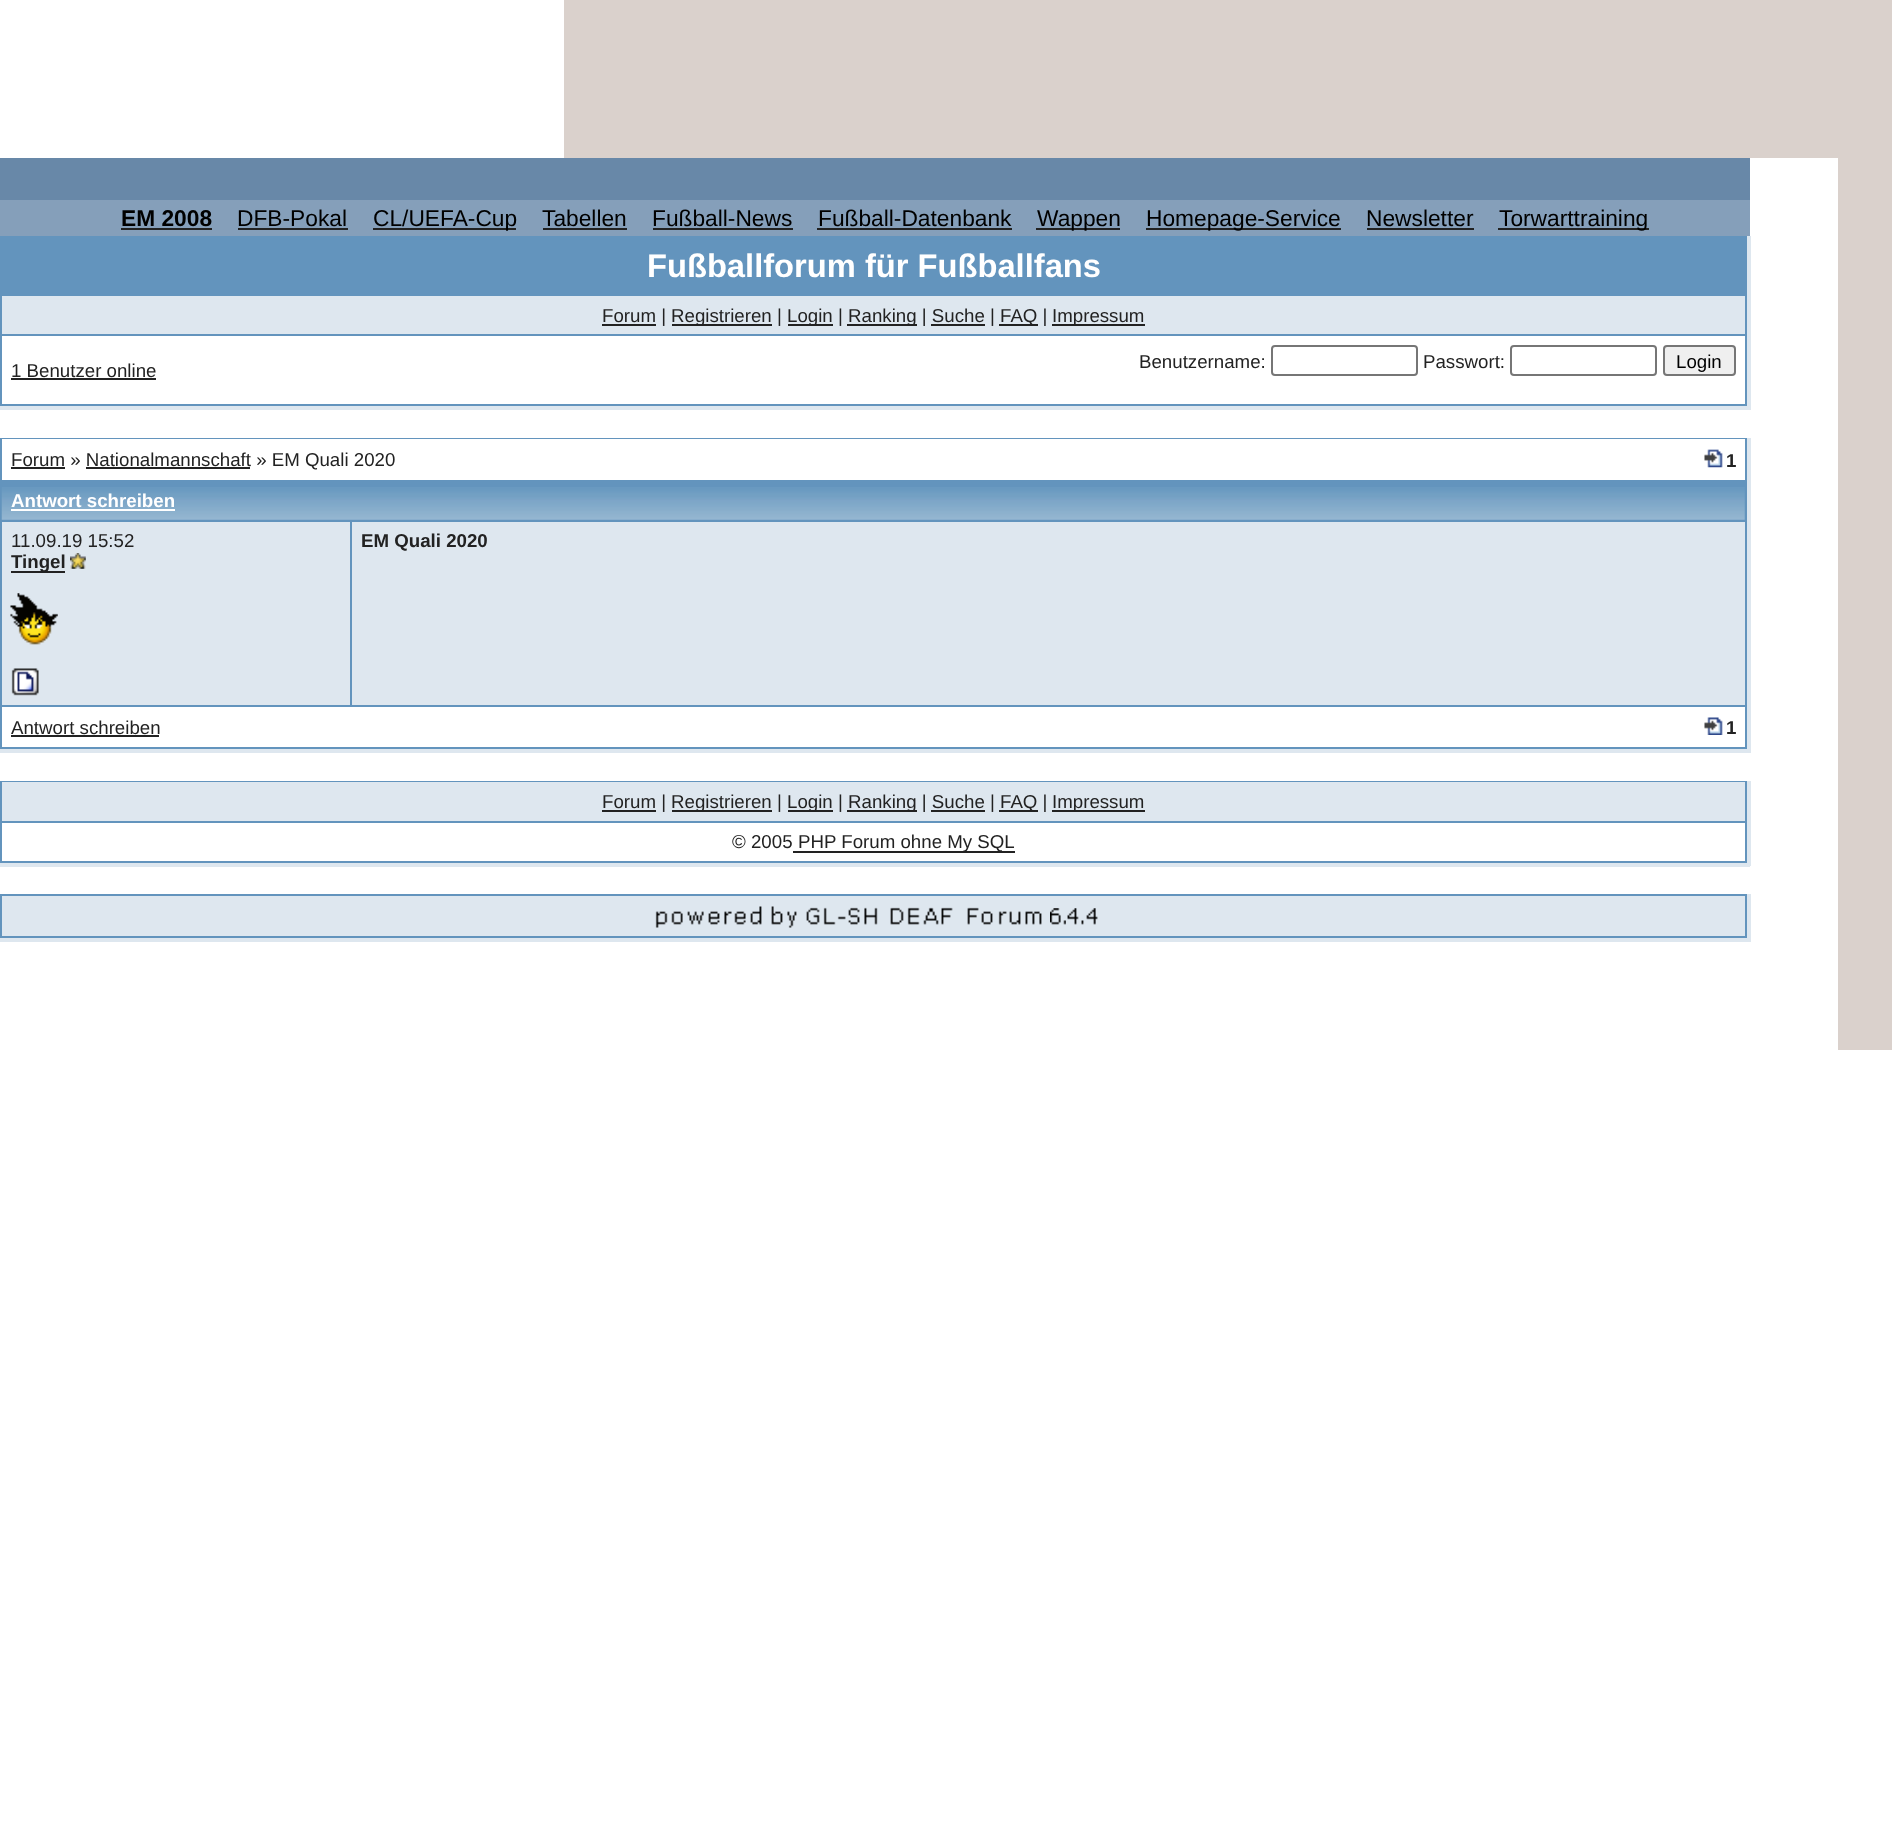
<!DOCTYPE html>
<meta charset="utf-8">
<style>body { margin: 0 } canvas { display: block }</style>
<canvas id="canvas" width="1892" height="1821"></canvas>
<script type="module">
  const canvas = document.getElementById("canvas");
  const g = canvas.getContext("2d");
  g.miterLimit = 4;
  g.fontKerning = "normal";
  function drawText(s, x, y, [font, color]) {
    g.font = font;
    g.fillStyle = color;
    g.fillText(s, x, y);
  }
  function fillBox(x, y, w, h, color) {
    g.fillStyle = color;
    g.fillRect(x, y, w, h);
  }
  async function drawPicture(src, x, y, w, h) {
    const img = new Image();
    img.src = src;
    await img.decode();
    g.drawImage(img, x, y, w, h);
  }

  const s1 = ["bold 22.75px Liberation Sans", "#000000"];
  const s2 = ["22.75px Liberation Sans", "#000000"];
  const s3 = ["bold 32.7px Liberation Sans", "#FFFFFF"];
  const s4 = ["18.7px Liberation Sans", "#222222"];
  const s5 = ["18.7px Liberation Sans", "#000000"];
  const s6 = ["bold 18.7px Liberation Sans", "#222222"];
  const s7 = ["bold 18.7px Liberation Sans", "#FFFFFF"];

  fillBox(0, 0, 1892, 1821, "#FFFFFF");
  fillBox(564, 0, 1274, 158, "#DAD1CC");
  fillBox(1838, 0, 54, 1050, "#DAD1CC");
  fillBox(0, 158, 1750, 42, "#6888A8");
  fillBox(0, 200, 1750, 36, "#859FBA");
  drawText("EM 2008", 121, 226, s1);
  fillBox(121, 228, 91, 2, "#222222");
  drawText("DFB-Pokal", 237, 226, s2);
  fillBox(238, 228, 110, 2, "#222222");
  fillBox(373, 228, 143, 2, "#222222");
  drawText("CL/UEFA-Cup", 373, 226, s2);
  drawText("Tabellen", 542, 226, s2);
  fillBox(543, 228, 84, 2, "#222222");
  drawText("Fußball-News", 652, 226, s2);
  fillBox(653, 228, 140, 2, "#222222");
  drawText("Fußball-Datenbank", 818, 226, s2);
  fillBox(817, 228, 195, 2, "#222222");
  fillBox(1036, 228, 84, 2, "#222222");
  drawText("Wappen", 1037, 226, s2);
  fillBox(1146, 228, 195, 2, "#222222");
  drawText("Homepage-Service", 1146, 226, s2);
  drawText("Newsletter", 1366, 226, s2);
  fillBox(1367, 228, 107, 2, "#222222");
  fillBox(1498, 228, 151, 2, "#222222");
  drawText("Torwarttraining", 1499, 226, s2);
  fillBox(0, 236, 1747, 170, "#6394BD");
  fillBox(1747, 236, 4, 174, "#DEE7EF");
  fillBox(0, 406, 1750, 4, "#DEE7EF");
  drawText("Fußballforum für Fußballfans", 647, 277, s3);
  fillBox(2, 296, 1743, 38, "#DEE7EF");
  fillBox(602, 324, 54, 2, "#222222");
  drawText("Forum |", 602, 322, s4);
  fillBox(672, 324, 100, 2, "#222222");
  drawText("Registrieren |", 671, 322, s4);
  fillBox(788, 324, 45, 2, "#222222");
  drawText("Login |", 787, 322, s4);
  fillBox(847, 324, 70, 2, "#222222");
  drawText("Ranking | Suche |", 848, 322, s4);
  fillBox(999, 324, 39, 2, "#222222");
  drawText("FAQ |", 1000, 322, s4);
  fillBox(1052, 324, 93, 2, "#222222");
  drawText("Impressum", 1052, 322, s4);
  fillBox(931, 324, 54, 2, "#222222");
  fillBox(2, 336, 1743, 68, "#FFFFFF");
  drawText("1 Benutzer online", 11, 377, s4);
  fillBox(11, 378, 145, 2, "#222222");
  drawText("Benutzername:", 1139, 368, s4);
  g.beginPath();
  g.roundRect(1272, 346, 145, 29, 3);
  g.strokeStyle = "#767676";
  g.lineWidth = 2;
  g.stroke();
  drawText("Passwort:", 1423, 368, s4);
  g.beginPath();
  g.roundRect(1511, 346, 145, 29, 3);
  g.stroke();
  g.fillStyle = "#EFEFEF";
  g.beginPath();
  g.roundRect(1664, 346, 71, 29, 3);
  g.fill();
  g.stroke();
  drawText("Login", 1676, 368, s5);
  fillBox(0, 438, 1747, 311, "#6394BD");
  fillBox(1747, 438, 4, 315, "#DEE7EF");
  fillBox(0, 749, 1750, 4, "#DEE7EF");
  fillBox(2, 439, 1743, 41, "#FFFFFF");
  fillBox(11, 467, 54, 2, "#222222");
  drawText("Forum » Nationalmannschaft » EM Quali 2020", 11, 466, s4);
  fillBox(86, 467, 164, 2, "#222222");
  await drawPicture("pic1.png", 1704, 449, 19, 19);
  drawText("1", 1726, 467, s6);
  await drawPicture("pic2.png", 1, 487, 1744, 33);
  drawText("Antwort schreiben", 11, 507, s7);
  fillBox(11, 509, 164, 2, "#FFFFFF");
  fillBox(2, 522, 348, 183, "#DEE7EF");
  drawText("11.09.19 15:52", 11, 547, s4);
  fillBox(11, 571, 54, 2, "#222222");
  drawText("Tingel", 11, 568, s6);
  await drawPicture("pic3.png", 70, 553, 16, 16);
  await drawPicture("pic4.png", 10, 593, 48, 52);
  await drawPicture("pic5.png", 11, 668, 28, 28);
  fillBox(352, 522, 1393, 183, "#DEE7EF");
  drawText("EM Quali 2020", 361, 547, s6);
  fillBox(2, 707, 1743, 40, "#FFFFFF");
  drawText("Antwort schreiben", 11, 734, s4);
  fillBox(11, 735, 148, 2, "#222222");
  await drawPicture("pic6.png", 1704, 717, 19, 18);
  drawText("1", 1726, 734, s6);
  fillBox(0, 781, 1747, 82, "#6394BD");
  fillBox(1747, 781, 4, 85, "#DEE7EF");
  fillBox(0, 863, 1750, 4, "#DEE7EF");
  fillBox(2, 782, 1743, 39, "#DEE7EF");
  fillBox(602, 810, 54, 2, "#222222");
  drawText("Forum |", 602, 808, s4);
  fillBox(672, 810, 100, 2, "#222222");
  drawText("Registrieren |", 671, 808, s4);
  fillBox(788, 810, 45, 2, "#222222");
  drawText("Login |", 787, 808, s4);
  fillBox(847, 810, 70, 2, "#222222");
  drawText("Ranking | Suche |", 848, 808, s4);
  fillBox(999, 810, 39, 2, "#222222");
  drawText("FAQ |", 1000, 808, s4);
  fillBox(1052, 810, 93, 2, "#222222");
  drawText("Impressum", 1052, 808, s4);
  fillBox(931, 810, 54, 2, "#222222");
  fillBox(2, 823, 1743, 38, "#FFFFFF");
  drawText("© 2005", 732, 848, s4);
  fillBox(793, 851, 222, 2, "#222222");
  drawText("PHP Forum ohne My SQL", 798, 848, s4);
  fillBox(0, 894, 1747, 44, "#6394BD");
  fillBox(1747, 894, 4, 48, "#DEE7EF");
  fillBox(0, 938, 1750, 4, "#DEE7EF");
  fillBox(2, 896, 1743, 40, "#DEE7EF");
  await drawPicture("pic7.png", 655, 906, 223, 22);
  await drawPicture("pic8.png", 890, 907, 63, 18);
  await drawPicture("pic9.png", 967, 907, 12, 18);
  await drawPicture("pic10.png", 981, 911, 12, 14);
  await drawPicture("pic11.png", 998, 911, 9, 14);
  await drawPicture("pic12.png", 1009, 911, 12, 14);
  await drawPicture("pic13.png", 1025, 911, 17, 14);
  await drawPicture("pic14.png", 1050, 908, 16, 17);
  await drawPicture("pic15.png", 1067, 908, 17, 17);
  await drawPicture("pic16.png", 1086, 908, 12, 17);
</script>
